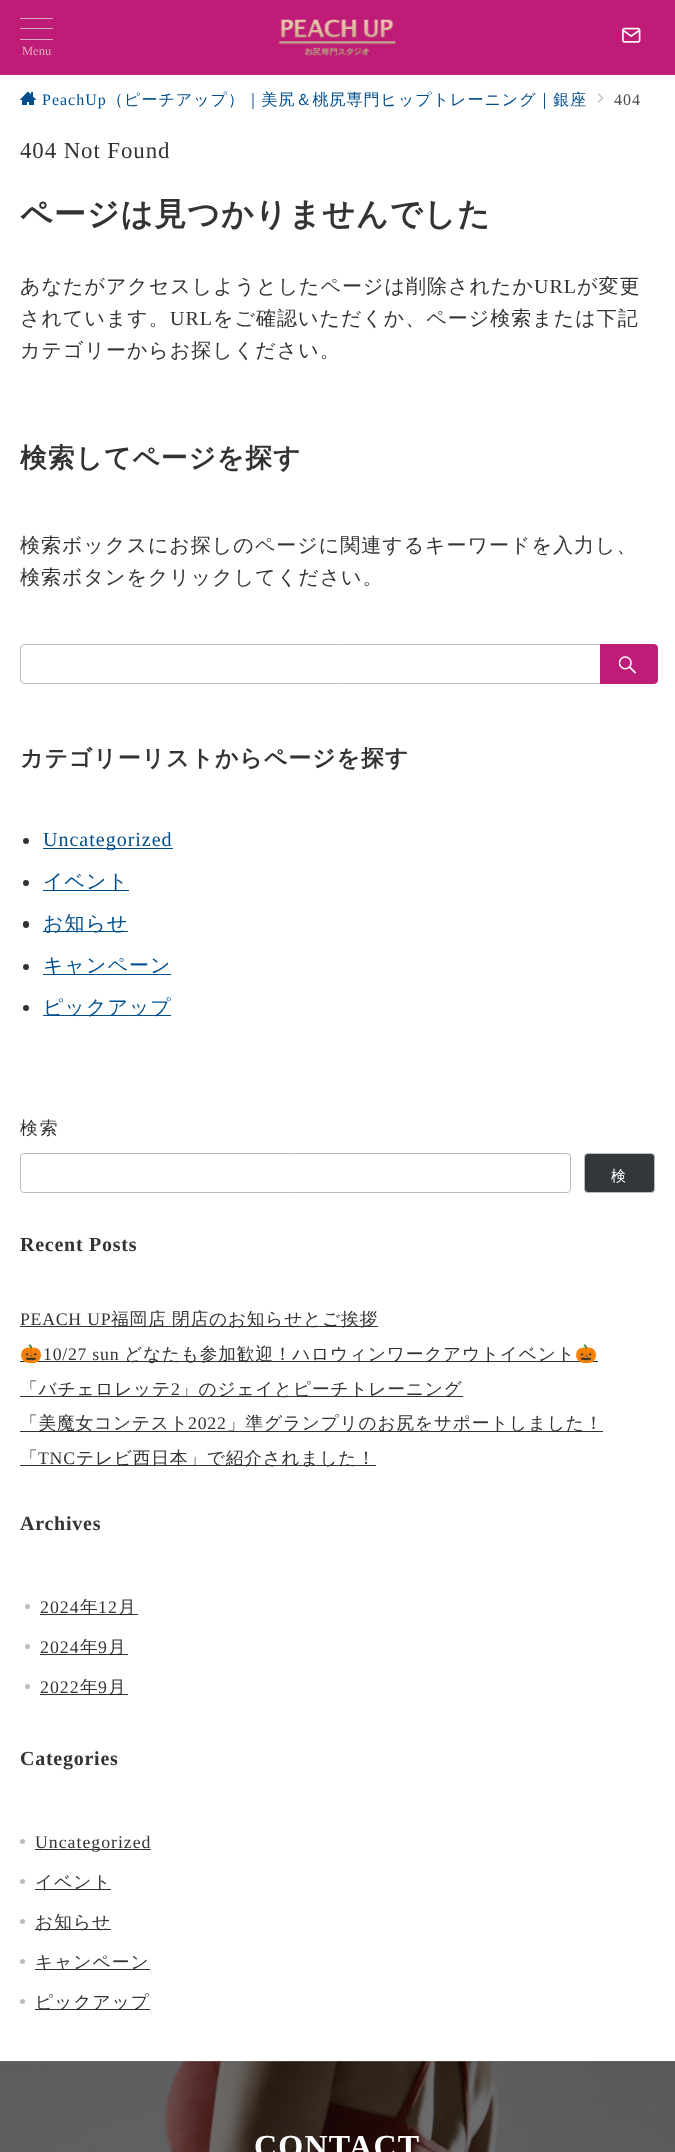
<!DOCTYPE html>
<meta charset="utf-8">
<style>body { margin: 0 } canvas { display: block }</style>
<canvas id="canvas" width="675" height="2152"></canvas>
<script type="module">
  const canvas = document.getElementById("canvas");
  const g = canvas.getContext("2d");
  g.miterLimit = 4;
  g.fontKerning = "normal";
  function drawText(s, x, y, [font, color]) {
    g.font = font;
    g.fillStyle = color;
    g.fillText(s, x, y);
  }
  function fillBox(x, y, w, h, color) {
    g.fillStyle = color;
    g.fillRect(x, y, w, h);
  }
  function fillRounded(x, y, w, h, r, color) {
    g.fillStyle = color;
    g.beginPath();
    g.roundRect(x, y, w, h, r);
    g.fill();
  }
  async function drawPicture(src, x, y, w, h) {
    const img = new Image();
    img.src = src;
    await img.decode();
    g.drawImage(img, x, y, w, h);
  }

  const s1 = ["12.5px Liberation Serif", "#DCADBB"];
  const s2 = ["16px Liberation Serif", "#004E8E"];
  const s3 = ["500 16px WenQuanYi Zen Hei", "#004E8E"];
  const s4 = ["16px Liberation Serif", "#484848"];
  const s5 = ["22.9px Liberation Serif", "#333333"];
  const s6 = ["bold 32px WenQuanYi Zen Hei", "#333333"];
  const s7 = ["500 20px WenQuanYi Zen Hei", "#333333"];
  const s8 = ["20px Liberation Serif", "#333333"];
  const s9 = ["bold 26.75px WenQuanYi Zen Hei", "#333333"];
  const s10 = ["bold 22.9px WenQuanYi Zen Hei", "#333333"];
  const s11 = ["20px Liberation Serif", "#004E8E"];
  const s12 = ["500 20px WenQuanYi Zen Hei", "#004E8E"];
  const s13 = ["500 17.75px WenQuanYi Zen Hei", "#333333"];
  const s14 = ["500 15px WenQuanYi Zen Hei", "#FFFFFF"];
  const s15 = ["bold 20px Liberation Serif", "#333333"];
  const s16 = ["17.75px Liberation Serif", "#333333"];
  const s17 = ["17.75px Noto Color Emoji", "#333333"];
  const s18 = ["bold 32px Liberation Serif", "#FFFFFF"];

  fillBox(0, 0, 675, 2152, "#FFFFFF");
  fillBox(0, 2061, 675, 1, "#6C6C6C");
  fillBox(0, 0, 675, 75, "#BF1C78");
  await drawPicture("pic1.png", 278, 19, 118, 38);
  await drawPicture("pic2.png", 622, 27, 19, 16);
  fillRounded(20, 18, 33, 1, 0.5, "#DCADBB");
  fillRounded(20, 28, 33, 1, 0.5, "#DCADBB");
  fillRounded(20, 39, 33, 1, 0.5, "#DCADBB");
  drawText("Menu", 22, 55, s1);
  await drawPicture("pic3.png", 20, 91, 16, 14);
  g.letterSpacing = "1px";
  drawText("PeachUp", 42, 105, s2);
  drawText("（ピーチアップ）｜美尻＆桃尻専門ヒップトレーニング｜銀座", 107, 105, s3);
  await drawPicture("pic4.png", 598, 93, 5, 10);
  drawText("404", 614, 105, s4);
  g.letterSpacing = "0.9px";
  drawText("404 Not Found", 20, 158, s5);
  g.letterSpacing = "1px";
  drawText("ページは見つかりませんでした", 20, 225, s6);
  drawText("あなたがアクセスしようとしたページは削除されたか", 20, 293, s7);
  drawText("URL", 534, 293, s8);
  drawText("が変更", 577, 293, s7);
  drawText("されています。", 20, 325, s7);
  drawText("URL", 170, 325, s8);
  drawText("をご確認いただくか、ページ検索または下記", 213, 325, s7);
  drawText("カテゴリーからお探しください。", 20, 357, s7);
  drawText("検索してページを探す", 20, 467, s9);
  drawText("検索ボックスにお探しのページに関連するキーワードを入力し、", 20, 552, s7);
  drawText("検索ボタンをクリックしてください。", 20, 584, s7);
  g.beginPath();
  g.roundRect(20.5, 644.5, 634, 39, 3.5);
  g.strokeStyle = "#B8BCC0";
  g.stroke();
  g.fillStyle = "#BF1C78";
  g.beginPath();
  g.roundRect(600.5, 644.5, 57, 39, [0, 3.5, 3.5, 0]);
  g.fill();
  g.strokeStyle = "#BF1C78";
  g.stroke();
  await drawPicture("pic5.png", 618, 656, 19, 18);
  drawText("カテゴリーリストからページを探す", 20, 766, s10);
  g.beginPath();
  g.arc(26, 841, 3, 0, Math.PI * 2);
  g.fill();
  fillBox(43, 848, 130, 1, "#004E8E");
  drawText("Uncategorized", 43, 846, s11);
  g.fillStyle = "#333333";
  g.beginPath();
  g.arc(26, 883, 3, 0, Math.PI * 2);
  g.fill();
  fillBox(43, 890, 86, 1, "#004E8E");
  drawText("イベント", 43, 888, s12);
  fillRounded(23, 921, 6, 7, 3, "#333333");
  fillBox(43, 931, 85, 1, "#004E8E");
  drawText("お知らせ", 43, 930, s12);
  g.fillStyle = "#333333";
  g.beginPath();
  g.arc(26, 967, 3, 0, Math.PI * 2);
  g.fill();
  fillBox(43, 974, 128, 1, "#004E8E");
  drawText("キャンペーン", 43, 972, s12);
  g.fillStyle = "#333333";
  g.beginPath();
  g.arc(26, 1008, 3, 0, Math.PI * 2);
  g.fill();
  fillBox(43, 1015, 128, 1, "#004E8E");
  drawText("ピックアップ", 43, 1014, s12);
  g.letterSpacing = "2px";
  drawText("検索", 20, 1134, s13);
  g.beginPath();
  g.roundRect(20.5, 1153.5, 550, 39, 3.5);
  g.strokeStyle = "#B8BCC0";
  g.stroke();
  g.fillStyle = "#32373C";
  g.beginPath();
  g.roundRect(584.5, 1153.5, 70, 39, 3.5);
  g.fill();
  g.stroke();
  g.letterSpacing = "1px";
  drawText("検", 611, 1181, s14);
  g.letterSpacing = "0.75px";
  drawText("Recent Posts", 20, 1251, s15);
  drawText("PEACH UP", 20, 1325, s16);
  fillBox(20, 1326, 358, 1, "#333333");
  drawText("福岡店", 111, 1325, s13);
  drawText("閉店のお知らせとご挨拶", 172, 1325, s13);
  fillBox(20, 1361, 578, 1, "#333333");
  drawText("🎃", 20, 1360, s17);
  drawText("10/27 sun", 43, 1360, s16);
  drawText("どなたも参加歓迎！ハロウィンワークアウトイベント", 124, 1360, s13);
  drawText("🎃", 575, 1360, s17);
  fillBox(20, 1396, 443, 1, "#333333");
  drawText("「バチェロレッテ", 20, 1395, s13);
  drawText("2", 171, 1395, s16);
  drawText("」のジェイとピーチトレーニング", 180, 1395, s13);
  fillBox(20, 1431, 583, 1, "#333333");
  drawText("「美魔女コンテスト", 20, 1429, s13);
  drawText("2022", 188, 1429, s16);
  drawText("」準グランプリのお尻をサポートしました！", 227, 1429, s13);
  drawText("「", 20, 1464, s13);
  drawText("TNC", 38, 1464, s16);
  fillBox(20, 1465, 356, 1, "#333333");
  drawText("テレビ西日本」で紹介されました！", 76, 1464, s13);
  drawText("Archives", 20, 1530, s15);
  g.fillStyle = "#B8BCC0";
  g.beginPath();
  g.arc(27.5, 1606.5, 2.5, 0, Math.PI * 2);
  g.fill();
  g.letterSpacing = "1px";
  drawText("2024", 40, 1613, s16);
  fillBox(40, 1614, 98, 1, "#333333");
  drawText("年", 80, 1613, s13);
  drawText("12", 98, 1613, s16);
  drawText("月", 118, 1613, s13);
  g.fillStyle = "#B8BCC0";
  g.beginPath();
  g.arc(27.5, 1646.5, 2.5, 0, Math.PI * 2);
  g.fill();
  drawText("2024", 40, 1653, s16);
  fillBox(40, 1654, 88, 1, "#333333");
  drawText("年", 80, 1653, s13);
  drawText("9", 98, 1653, s16);
  drawText("月", 108, 1653, s13);
  g.fillStyle = "#B8BCC0";
  g.beginPath();
  g.arc(27.5, 1686.5, 2.5, 0, Math.PI * 2);
  g.fill();
  drawText("2022", 40, 1693, s16);
  fillBox(40, 1694, 88, 1, "#333333");
  drawText("年", 80, 1693, s13);
  drawText("9", 98, 1693, s16);
  drawText("月", 108, 1693, s13);
  g.letterSpacing = "0.75px";
  drawText("Categories", 20, 1765, s15);
  g.fillStyle = "#B8BCC0";
  g.beginPath();
  g.arc(22.5, 1841.5, 2.5, 0, Math.PI * 2);
  g.fill();
  fillBox(35, 1849, 116, 1, "#333333");
  g.letterSpacing = "1px";
  drawText("Uncategorized", 35, 1848, s16);
  g.fillStyle = "#B8BCC0";
  g.beginPath();
  g.arc(22.5, 1881.5, 2.5, 0, Math.PI * 2);
  g.fill();
  fillBox(35, 1889, 76, 1, "#333333");
  drawText("イベント", 35, 1888, s13);
  g.fillStyle = "#B8BCC0";
  g.beginPath();
  g.arc(22.5, 1921.5, 2.5, 0, Math.PI * 2);
  g.fill();
  fillBox(35, 1929, 76, 1, "#333333");
  drawText("お知らせ", 35, 1928, s13);
  g.fillStyle = "#B8BCC0";
  g.beginPath();
  g.arc(22.5, 1961.5, 2.5, 0, Math.PI * 2);
  g.fill();
  fillBox(35, 1969, 115, 1, "#333333");
  drawText("キャンペーン", 35, 1968, s13);
  g.fillStyle = "#B8BCC0";
  g.beginPath();
  g.arc(22.5, 2001.5, 2.5, 0, Math.PI * 2);
  g.fill();
  fillBox(35, 2009, 115, 1, "#333333");
  drawText("ピックアップ", 35, 2008, s13);
  await drawPicture("pic6.png", 0, 2061, 675, 91);
  g.letterSpacing = "1.25px";
  drawText("CONTACT", 254, 2157, s18);
</script>
